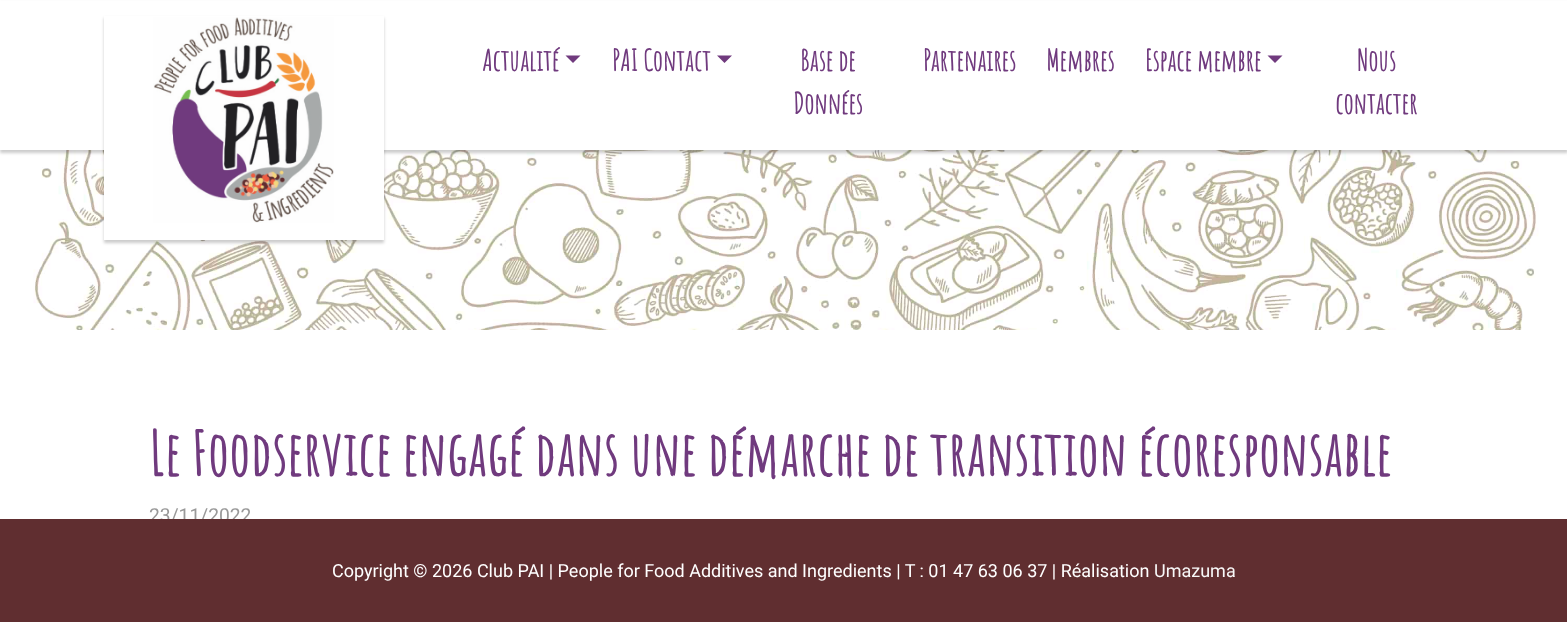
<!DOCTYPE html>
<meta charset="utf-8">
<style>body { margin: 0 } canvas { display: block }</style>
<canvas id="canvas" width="1567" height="622"></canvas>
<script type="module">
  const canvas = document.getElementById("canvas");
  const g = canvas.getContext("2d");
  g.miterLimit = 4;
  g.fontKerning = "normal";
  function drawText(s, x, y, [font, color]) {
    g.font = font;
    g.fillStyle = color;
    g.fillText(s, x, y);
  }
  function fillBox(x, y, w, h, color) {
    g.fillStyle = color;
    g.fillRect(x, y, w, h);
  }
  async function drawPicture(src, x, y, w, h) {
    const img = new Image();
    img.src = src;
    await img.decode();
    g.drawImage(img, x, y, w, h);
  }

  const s1 = ["bold 29px Amatic SC", "#703A7E"];
  const s2 = ["bold 60px Amatic SC", "#703A7E"];
  const s3 = ["19.25px Roboto", "#999999"];
  const s4 = ["18px Roboto", "#FFFFFF"];
  const s5 = ["18px Roboto", "#F8F8F8"];

  fillBox(0, 0, 1567, 622, "#FFFFFF");
  await drawPicture("pic2.png", 33, 150, 1513, 180);
  g.fillStyle = "rgba(0, 0, 0, 0.2)";
  g.filter = "blur(1.5px)";
  g.beginPath();
  g.rect(0, 3, 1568, 150);
  g.fill();
  g.filter = "none";
  fillBox(0, 1, 1567, 149, "#FFFFFF");
  g.fillStyle = "rgba(0, 0, 0, 0.2)";
  g.filter = "blur(1.5px)";
  g.beginPath();
  g.rect(104, 18, 280, 225);
  g.fill();
  g.filter = "none";
  fillBox(104, 16, 280, 224, "#FFFFFF");
  await drawPicture("pic1.png", 153, 17, 181, 206);
  drawText("Actualité", 482, 71, s1);
  g.beginPath();
  g.moveTo(565.5, 55.5);
  g.lineTo(580.5, 55.5);
  g.lineTo(573, 63);
  g.closePath();
  g.fill();
  drawText("PAI Contact", 612, 71, s1);
  g.beginPath();
  g.moveTo(717, 55.5);
  g.lineTo(732, 55.5);
  g.lineTo(724.5, 63);
  g.closePath();
  g.fill();
  drawText("Base de", 800, 71, s1);
  drawText("Données", 793, 114, s1);
  drawText("Partenaires", 923, 71, s1);
  drawText("Membres", 1046, 71, s1);
  drawText("Espace membre", 1145, 71, s1);
  g.beginPath();
  g.moveTo(1267.5, 55.5);
  g.lineTo(1282.5, 55.5);
  g.lineTo(1275, 63);
  g.closePath();
  g.fill();
  drawText("Nous", 1357, 71, s1);
  drawText("contacter", 1335, 114, s1);
  g.letterSpacing = "0.6px";
  drawText("Le Foodservice engagé dans une démarche de transition écoresponsable", 149, 476, s2);
  g.letterSpacing = "0px";
  drawText("23/11/2022", 149, 522, s3);
  fillBox(0, 519, 1567, 103, "#602E30");
  drawText("Copyright © 2026 Club PAI | People for Food Additives and Ingredients | T : 01 47 63 06 37 | Réalisation", 332, 577, s4);
  drawText("Umazuma", 1154, 577, s5);
</script>
